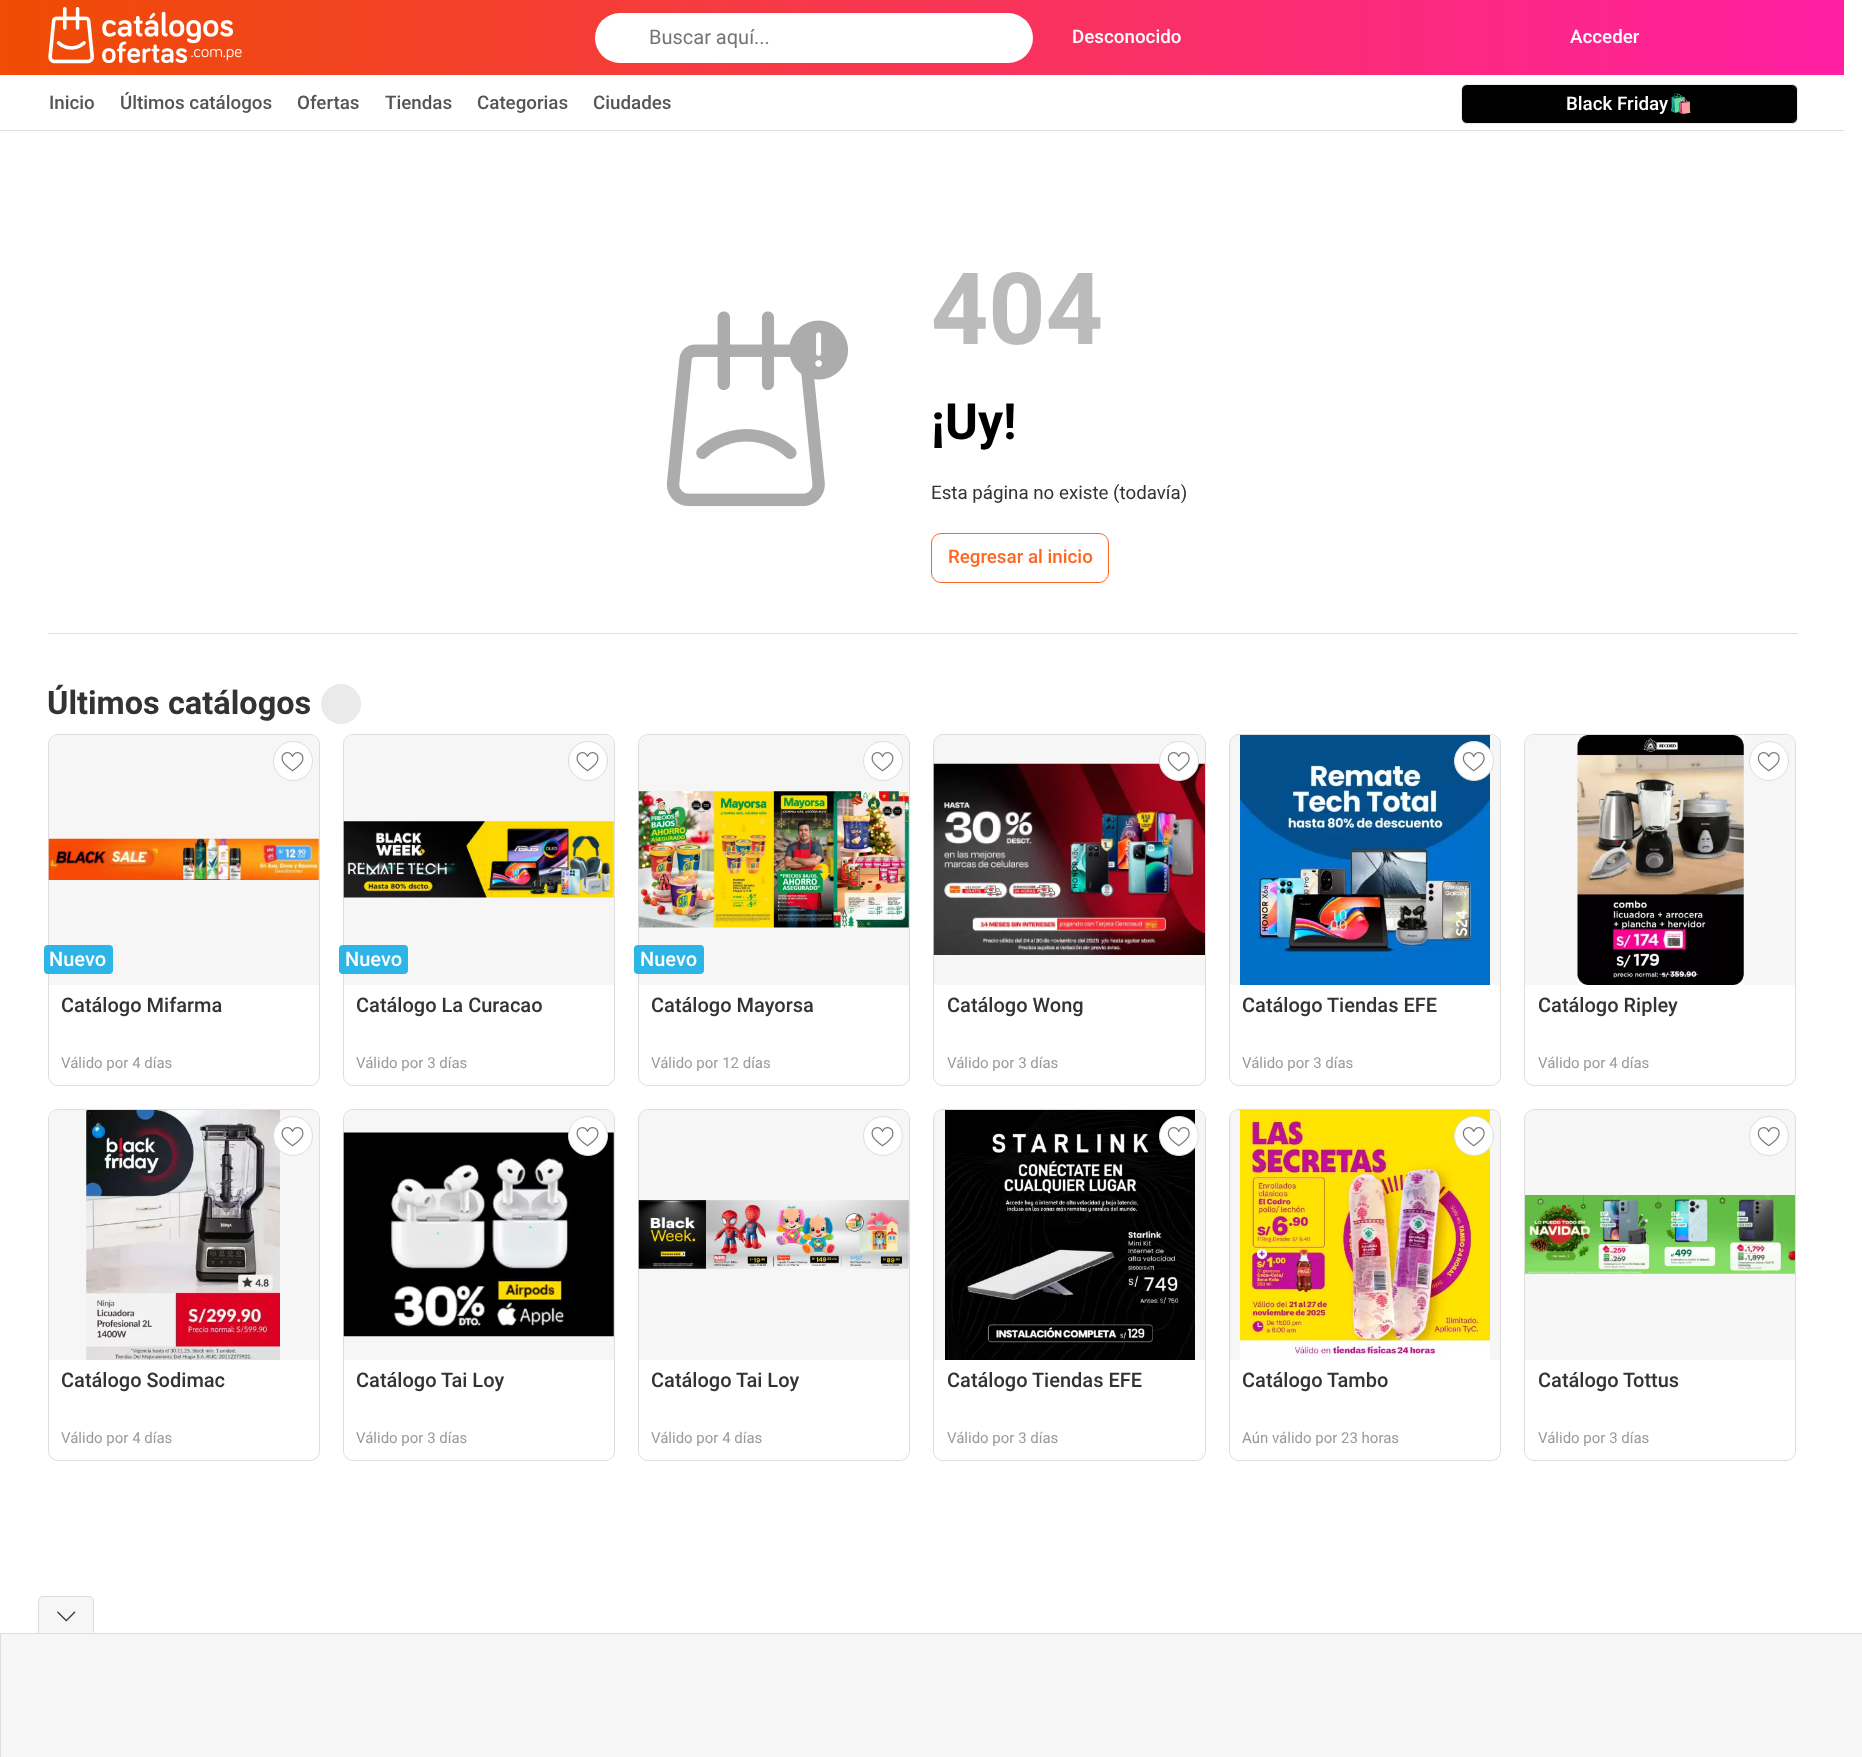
<!DOCTYPE html>
<meta charset="utf-8">
<style>body { margin: 0 } canvas { display: block }</style>
<canvas id="canvas" width="1862" height="1757"></canvas>
<script type="module">
  const canvas = document.getElementById("canvas");
  const g = canvas.getContext("2d");
  g.miterLimit = 4;
  g.fontKerning = "normal";
  function drawText(s, x, y, [font, color]) {
    g.font = font;
    g.fillStyle = color;
    g.fillText(s, x, y);
  }
  function fillBox(x, y, w, h, color) {
    g.fillStyle = color;
    g.fillRect(x, y, w, h);
  }
  function fillRounded(x, y, w, h, r, color) {
    g.fillStyle = color;
    g.beginPath();
    g.roundRect(x, y, w, h, r);
    g.fill();
  }
  async function drawPicture(src, x, y, w, h) {
    const img = new Image();
    img.src = src;
    await img.decode();
    g.drawImage(img, x, y, w, h);
  }
  let gradient;

  const s1 = ["20px Roboto", "#757575"];
  const s2 = ["500 18.75px Roboto", "#FFFFFF"];
  const s3 = ["500 18.75px Roboto", "#555555"];
  const s4 = ["18.75px Noto Color Emoji", "#FFFFFF"];
  const s5 = ["bold 100px Roboto", "#BBBBBB"];
  const s6 = ["bold 50px Roboto", "#000000"];
  const s7 = ["18.75px Roboto", "#333333"];
  const s8 = ["500 18.75px Roboto", "#FF661F"];
  const s9 = ["bold 32.5px Roboto", "#333333"];
  const s10 = ["500 20px Roboto", "#FFFFFF"];
  const s11 = ["500 20px Roboto", "#333333"];
  const s12 = ["15px Roboto", "#999999"];

  fillBox(0, 0, 1862, 1757, "#FFFFFF");
  g.fillStyle = "#DDDDDD";
  g.filter = "blur(0.5px)";
  g.beginPath();
  g.rect(0, 1, 1844, 130);
  g.fill();
  g.filter = "none";
  gradient = g.createLinearGradient(1844, 65, 0, 65);
  gradient.addColorStop(0, "#FF1FA3");
  gradient.addColorStop(1, "#F04C03");
  g.fillStyle = gradient;
  g.fillRect(0, 0, 1844, 75);
  await drawPicture("pic1.png", 48, 7, 194, 57);
  fillRounded(595, 13, 438, 50, 25, "#FFFFFF");
  drawText("Buscar aquí...", 649, 44, s1);
  drawText("Desconocido", 1072, 43, s2);
  drawText("Acceder", 1570, 43, s2);
  fillBox(0, 75, 1844, 55, "#FFFFFF");
  drawText("Inicio", 49, 109, s3);
  drawText("Últimos catálogos", 120, 109, s3);
  drawText("Ofertas", 297, 109, s3);
  drawText("Tiendas", 385, 109, s3);
  drawText("Categorias", 477, 109, s3);
  drawText("Ciudades", 593, 109, s3);
  g.fillStyle = "#000000";
  g.beginPath();
  g.roundRect(1461.5, 84.5, 336, 39, 5.5);
  g.fill();
  g.strokeStyle = "#EAEAEA";
  g.stroke();
  drawText("Black Friday", 1566, 110, s2);
  drawText("🛍️", 1669, 110, s4);
  fillBox(48, 633, 1750, 1, "#DDDDDD");
  await drawPicture("pic2.png", 666, 311, 182, 196);
  drawText("404", 931, 344, s5);
  drawText("¡Uy!", 931, 439, s6);
  drawText("Esta página no existe (todavía)", 931, 499, s7);
  g.beginPath();
  g.roundRect(931.5, 533.5, 177, 49, 9.5);
  g.strokeStyle = "#FF661F";
  g.stroke();
  drawText("Regresar al inicio", 948, 563, s8);
  drawText("Últimos catálogos", 47, 714, s9);
  g.fillStyle = "#EAEAEA";
  g.beginPath();
  g.arc(341, 704, 19.5, 0, Math.PI * 2);
  g.fill();
  g.strokeStyle = "#EAEAEA";
  g.stroke();
  g.beginPath();
  g.roundRect(48.5, 734.5, 271, 351, 9.5);
  g.strokeStyle = "#DDDDDD";
  g.stroke();
  g.fillStyle = "#F6F6F6";
  g.beginPath();
  g.roundRect(49, 735, 270, 250, [10, 10, 0, 0]);
  g.fill();
  g.fillStyle = "#FFFFFF";
  g.beginPath();
  g.arc(293, 761, 19.5, 0, Math.PI * 2);
  g.fill();
  g.stroke();
  await drawPicture("pic3.png", 281, 752, 23, 20);
  await drawPicture("pic4.png", 48, 838, 271, 42);
  fillRounded(44, 945, 69, 29, 4, "#2CB5E6");
  drawText("Nuevo", 49, 966, s10);
  g.beginPath();
  g.roundRect(49, 985, 270, 100, [0, 0, 10, 10]);
  g.fill();
  drawText("Catálogo Mifarma", 61, 1012, s11);
  drawText("Válido por 4 días", 61, 1068, s12);
  g.beginPath();
  g.roundRect(343.5, 734.5, 271, 351, 9.5);
  g.stroke();
  g.fillStyle = "#F6F6F6";
  g.beginPath();
  g.roundRect(344, 735, 270, 250, [10, 10, 0, 0]);
  g.fill();
  g.fillStyle = "#FFFFFF";
  g.beginPath();
  g.arc(588, 761, 19.5, 0, Math.PI * 2);
  g.fill();
  g.stroke();
  await drawPicture("pic3.png", 576, 752, 23, 20);
  await drawPicture("pic5.png", 343, 821, 271, 77);
  fillRounded(339, 945, 69, 29, 4, "#2CB5E6");
  drawText("Nuevo", 345, 966, s10);
  g.beginPath();
  g.roundRect(344, 985, 270, 100, [0, 0, 10, 10]);
  g.fill();
  drawText("Catálogo La Curacao", 356, 1012, s11);
  drawText("Válido por 3 días", 356, 1068, s12);
  g.beginPath();
  g.roundRect(638.5, 734.5, 271, 351, 9.5);
  g.stroke();
  g.fillStyle = "#F6F6F6";
  g.beginPath();
  g.roundRect(639, 735, 270, 250, [10, 10, 0, 0]);
  g.fill();
  g.fillStyle = "#FFFFFF";
  g.beginPath();
  g.arc(883, 761, 19.5, 0, Math.PI * 2);
  g.fill();
  g.stroke();
  await drawPicture("pic3.png", 871, 752, 23, 20);
  await drawPicture("pic6.png", 638, 791, 271, 137);
  fillRounded(634, 945, 70, 29, 4, "#2CB5E6");
  drawText("Nuevo", 640, 966, s10);
  g.beginPath();
  g.roundRect(639, 985, 270, 100, [0, 0, 10, 10]);
  g.fill();
  drawText("Catálogo Mayorsa", 651, 1012, s11);
  drawText("Válido por 12 días", 651, 1068, s12);
  g.beginPath();
  g.roundRect(933.5, 734.5, 272, 351, 9.5);
  g.stroke();
  g.fillStyle = "#F6F6F6";
  g.beginPath();
  g.roundRect(934, 735, 271, 250, [10, 10, 0, 0]);
  g.fill();
  await drawPicture("pic7.png", 933, 763, 272, 192);
  g.fillStyle = "#FFFFFF";
  g.beginPath();
  g.arc(1179, 761, 19.5, 0, Math.PI * 2);
  g.fill();
  g.stroke();
  await drawPicture("pic8.png", 1167, 752, 23, 20);
  g.beginPath();
  g.roundRect(934, 985, 271, 100, [0, 0, 10, 10]);
  g.fill();
  drawText("Catálogo Wong", 947, 1012, s11);
  drawText("Válido por 3 días", 947, 1068, s12);
  g.beginPath();
  g.roundRect(1229.5, 734.5, 271, 351, 9.5);
  g.stroke();
  g.fillStyle = "#F6F6F6";
  g.beginPath();
  g.roundRect(1230, 735, 270, 250, [10, 10, 0, 0]);
  g.fill();
  await drawPicture("pic9.png", 1240, 735, 250, 250);
  g.fillStyle = "#FFFFFF";
  g.beginPath();
  g.arc(1474, 761, 19.5, 0, Math.PI * 2);
  g.fill();
  g.stroke();
  await drawPicture("pic8.png", 1462, 752, 23, 20);
  g.beginPath();
  g.roundRect(1230, 985, 270, 100, [0, 0, 10, 10]);
  g.fill();
  drawText("Catálogo Tiendas EFE", 1242, 1012, s11);
  drawText("Válido por 3 días", 1242, 1068, s12);
  g.beginPath();
  g.roundRect(1524.5, 734.5, 271, 351, 9.5);
  g.stroke();
  g.fillStyle = "#F6F6F6";
  g.beginPath();
  g.roundRect(1525, 735, 270, 250, [10, 10, 0, 0]);
  g.fill();
  await drawPicture("pic10.png", 1577, 735, 167, 250);
  g.fillStyle = "#FFFFFF";
  g.beginPath();
  g.arc(1769, 761, 19.5, 0, Math.PI * 2);
  g.fill();
  g.stroke();
  await drawPicture("pic8.png", 1757, 752, 23, 20);
  g.beginPath();
  g.roundRect(1525, 985, 270, 100, [0, 0, 10, 10]);
  g.fill();
  drawText("Catálogo Ripley", 1538, 1012, s11);
  drawText("Válido por 4 días", 1538, 1068, s12);
  g.beginPath();
  g.roundRect(48.5, 1109.5, 271, 351, 9.5);
  g.stroke();
  g.fillStyle = "#F6F6F6";
  g.beginPath();
  g.roundRect(49, 1110, 270, 250, [10, 10, 0, 0]);
  g.fill();
  await drawPicture("pic11.png", 86, 1110, 194, 250);
  g.fillStyle = "#FFFFFF";
  g.beginPath();
  g.arc(293, 1136, 19.5, 0, Math.PI * 2);
  g.fill();
  g.stroke();
  await drawPicture("pic3.png", 281, 1127, 23, 20);
  g.beginPath();
  g.roundRect(49, 1360, 270, 100, [0, 0, 10, 10]);
  g.fill();
  drawText("Catálogo Sodimac", 61, 1387, s11);
  drawText("Válido por 4 días", 61, 1443, s12);
  g.beginPath();
  g.roundRect(343.5, 1109.5, 271, 351, 9.5);
  g.stroke();
  g.fillStyle = "#F6F6F6";
  g.beginPath();
  g.roundRect(344, 1110, 270, 250, [10, 10, 0, 0]);
  g.fill();
  await drawPicture("pic12.png", 343, 1132, 271, 205);
  g.fillStyle = "#FFFFFF";
  g.beginPath();
  g.arc(588, 1136, 19.5, 0, Math.PI * 2);
  g.fill();
  g.stroke();
  await drawPicture("pic3.png", 576, 1127, 23, 20);
  g.beginPath();
  g.roundRect(344, 1360, 270, 100, [0, 0, 10, 10]);
  g.fill();
  drawText("Catálogo Tai Loy", 356, 1387, s11);
  drawText("Válido por 3 días", 356, 1443, s12);
  g.beginPath();
  g.roundRect(638.5, 1109.5, 271, 351, 9.5);
  g.stroke();
  g.fillStyle = "#F6F6F6";
  g.beginPath();
  g.roundRect(639, 1110, 270, 250, [10, 10, 0, 0]);
  g.fill();
  await drawPicture("pic13.png", 638, 1200, 271, 69);
  g.fillStyle = "#FFFFFF";
  g.beginPath();
  g.arc(883, 1136, 19.5, 0, Math.PI * 2);
  g.fill();
  g.stroke();
  await drawPicture("pic3.png", 871, 1127, 23, 20);
  g.beginPath();
  g.roundRect(639, 1360, 270, 100, [0, 0, 10, 10]);
  g.fill();
  drawText("Catálogo Tai Loy", 651, 1387, s11);
  drawText("Válido por 4 días", 651, 1443, s12);
  g.beginPath();
  g.roundRect(933.5, 1109.5, 272, 351, 9.5);
  g.stroke();
  g.fillStyle = "#F6F6F6";
  g.beginPath();
  g.roundRect(934, 1110, 271, 250, [10, 10, 0, 0]);
  g.fill();
  await drawPicture("pic14.png", 945, 1110, 250, 250);
  g.fillStyle = "#FFFFFF";
  g.beginPath();
  g.arc(1179, 1136, 19.5, 0, Math.PI * 2);
  g.fill();
  g.stroke();
  await drawPicture("pic8.png", 1167, 1127, 23, 20);
  g.beginPath();
  g.roundRect(934, 1360, 271, 100, [0, 0, 10, 10]);
  g.fill();
  drawText("Catálogo Tiendas EFE", 947, 1387, s11);
  drawText("Válido por 3 días", 947, 1443, s12);
  g.beginPath();
  g.roundRect(1229.5, 1109.5, 271, 351, 9.5);
  g.stroke();
  g.fillStyle = "#F6F6F6";
  g.beginPath();
  g.roundRect(1230, 1110, 270, 250, [10, 10, 0, 0]);
  g.fill();
  await drawPicture("pic15.png", 1240, 1110, 250, 250);
  g.fillStyle = "#FFFFFF";
  g.beginPath();
  g.arc(1474, 1136, 19.5, 0, Math.PI * 2);
  g.fill();
  g.stroke();
  await drawPicture("pic8.png", 1462, 1127, 23, 20);
  g.beginPath();
  g.roundRect(1230, 1360, 270, 100, [0, 0, 10, 10]);
  g.fill();
  drawText("Catálogo Tambo", 1242, 1387, s11);
  drawText("Aún válido por 23 horas", 1242, 1443, s12);
  g.beginPath();
  g.roundRect(1524.5, 1109.5, 271, 351, 9.5);
  g.stroke();
  g.fillStyle = "#F6F6F6";
  g.beginPath();
  g.roundRect(1525, 1110, 270, 250, [10, 10, 0, 0]);
  g.fill();
  await drawPicture("pic16.png", 1525, 1195, 270, 79);
  g.fillStyle = "#FFFFFF";
  g.beginPath();
  g.arc(1769, 1136, 19.5, 0, Math.PI * 2);
  g.fill();
  g.stroke();
  await drawPicture("pic8.png", 1757, 1127, 23, 20);
  g.beginPath();
  g.roundRect(1525, 1360, 270, 100, [0, 0, 10, 10]);
  g.fill();
  drawText("Catálogo Tottus", 1538, 1387, s11);
  drawText("Válido por 3 días", 1538, 1443, s12);
  g.fillStyle = "#F6F6F6";
  g.beginPath();
  g.rect(0.5, 1633.5, 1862, 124);
  g.fill();
  g.stroke();
  g.beginPath();
  g.roundRect(38.5, 1596.5, 55, 37, [4.5, 4.5, 0, 0]);
  g.fill();
  g.stroke();
  await drawPicture("pic17.png", 57, 1611, 19, 11);
</script>
